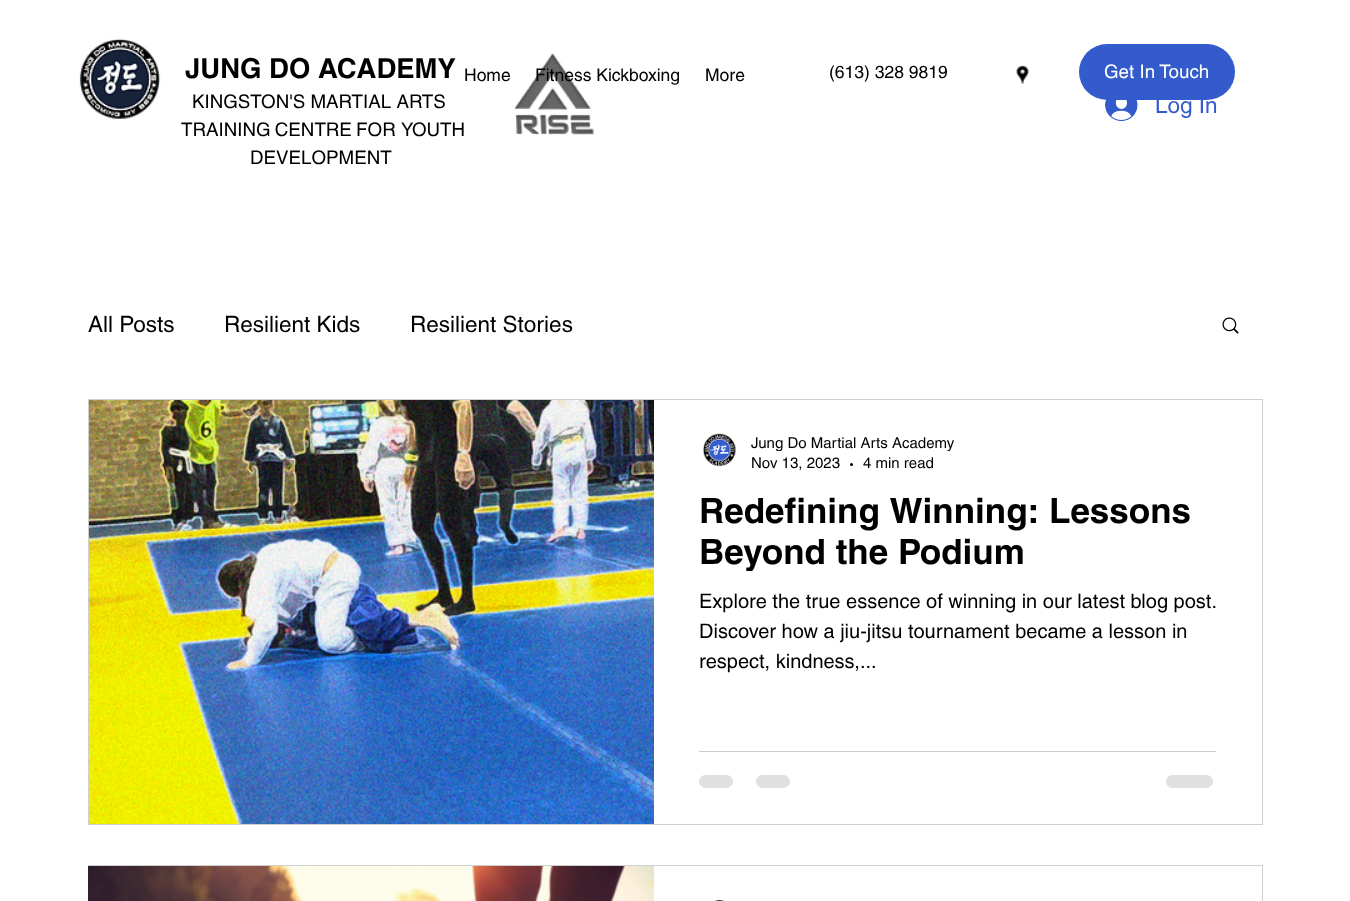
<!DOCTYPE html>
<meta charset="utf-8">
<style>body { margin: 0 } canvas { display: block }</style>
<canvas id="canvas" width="1350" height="901"></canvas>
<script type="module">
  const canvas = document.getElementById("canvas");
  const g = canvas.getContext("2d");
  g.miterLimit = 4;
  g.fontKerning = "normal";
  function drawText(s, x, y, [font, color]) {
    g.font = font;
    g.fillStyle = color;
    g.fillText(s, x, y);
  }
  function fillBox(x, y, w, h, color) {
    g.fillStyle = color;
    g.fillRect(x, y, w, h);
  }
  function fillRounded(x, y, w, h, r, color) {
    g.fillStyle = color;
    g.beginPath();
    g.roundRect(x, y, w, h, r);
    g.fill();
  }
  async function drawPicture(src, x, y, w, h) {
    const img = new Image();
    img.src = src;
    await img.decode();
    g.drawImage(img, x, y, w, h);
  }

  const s1 = ["bold 27.5px helvetica", "#000000"];
  const s2 = ["18.75px helvetica", "#000000"];
  const s3 = ["17.5px helvetica", "#000000"];
  const s4 = ["18.75px helvetica", "#FFFFFF"];
  const s5 = ["22.5px helvetica", "#335BCC"];
  const s6 = ["22.5px helvetica", "#000000"];
  const s7 = ["15px helvetica", "#000000"];
  const s8 = ["bold 35px helvetica", "#000000"];
  const s9 = ["20px helvetica", "#000000"];

  fillBox(0, 0, 1350, 901, "#FFFFFF");
  await drawPicture("pic1.png", 79, 38, 82, 81);
  drawText("JUNG DO ACADEMY", 185, 78, s1);
  await drawPicture("pic2.png", 514, 53, 80, 82);
  drawText("KINGSTON'S MARTIAL ARTS", 192, 108, s2);
  g.wordSpacing = "-1px";
  drawText("TRAINING CENTRE FOR", 181, 136, s2);
  g.wordSpacing = "0px";
  drawText("YOUTH", 401, 136, s2);
  drawText("DEVELOPMENT", 250, 164, s2);
  drawText("Home", 464, 81, s3);
  drawText("Fitness Kickboxing", 535, 81, s3);
  drawText("More", 705, 81, s3);
  drawText("(613) 328 9819", 829, 78, s3);
  await drawPicture("pic3.png", 1016, 65, 13, 19);
  fillRounded(1079, 44, 156, 56, 28, "#335BCC");
  drawText("Get In Touch", 1104, 78, s4);
  await drawPicture("pic4.png", 1105, 99, 33, 22);
  drawText("Log In", 1155, 113, s5);
  drawText("All Posts", 88, 332, s6);
  drawText("Resilient Kids", 224, 332, s6);
  drawText("Resilient Stories", 410, 332, s6);
  await drawPicture("pic5.png", 1222, 317, 17, 17);
  g.strokeStyle = "#CFCFCF";
  g.strokeRect(88.5, 399.5, 1174, 425);
  await drawPicture("pic6.png", 89, 400, 565, 424);
  await drawPicture("pic7.png", 703, 433, 33, 34);
  g.save();
  g.beginPath();
  g.rect(751, 434, 204, 17);
  g.clip();
  drawText("Jung Do Martial Arts Academy", 751, 448, s7);
  g.restore();
  drawText("Nov 13, 2023", 751, 468, s7);
  g.beginPath();
  g.arc(851.5, 464.5, 1.5, 0, Math.PI * 2);
  g.fill();
  drawText("4 min read", 863, 468, s7);
  drawText("Redefining Winning: Lessons", 699, 523, s8);
  g.save();
  g.beginPath();
  g.rect(699, 489, 517, 82);
  g.clip();
  drawText("Beyond the Podium", 699, 564, s8);
  g.restore();
  drawText("Explore the true essence of winning in our latest blog post.", 699, 608, s9);
  drawText("Discover how a jiu-jitsu tournament became a lesson in", 699, 638, s9);
  drawText("respect, kindness,...", 699, 668, s9);
  fillBox(699, 751, 517, 1, "#CCCCCC");
  fillRounded(699, 775, 34, 13, 6.5, "#E0E0E0");
  fillRounded(756, 775, 34, 13, 6.5, "#E0E0E0");
  fillRounded(1166, 775, 47, 13, 6.5, "#E0E0E0");
  g.strokeRect(88.5, 865.5, 1174, 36);
  await drawPicture("pic8.png", 88, 866, 1, 35);
  await drawPicture("pic9.png", 89, 866, 565, 35);
  await drawPicture("pic10.png", 714, 900, 11, 1);
</script>
